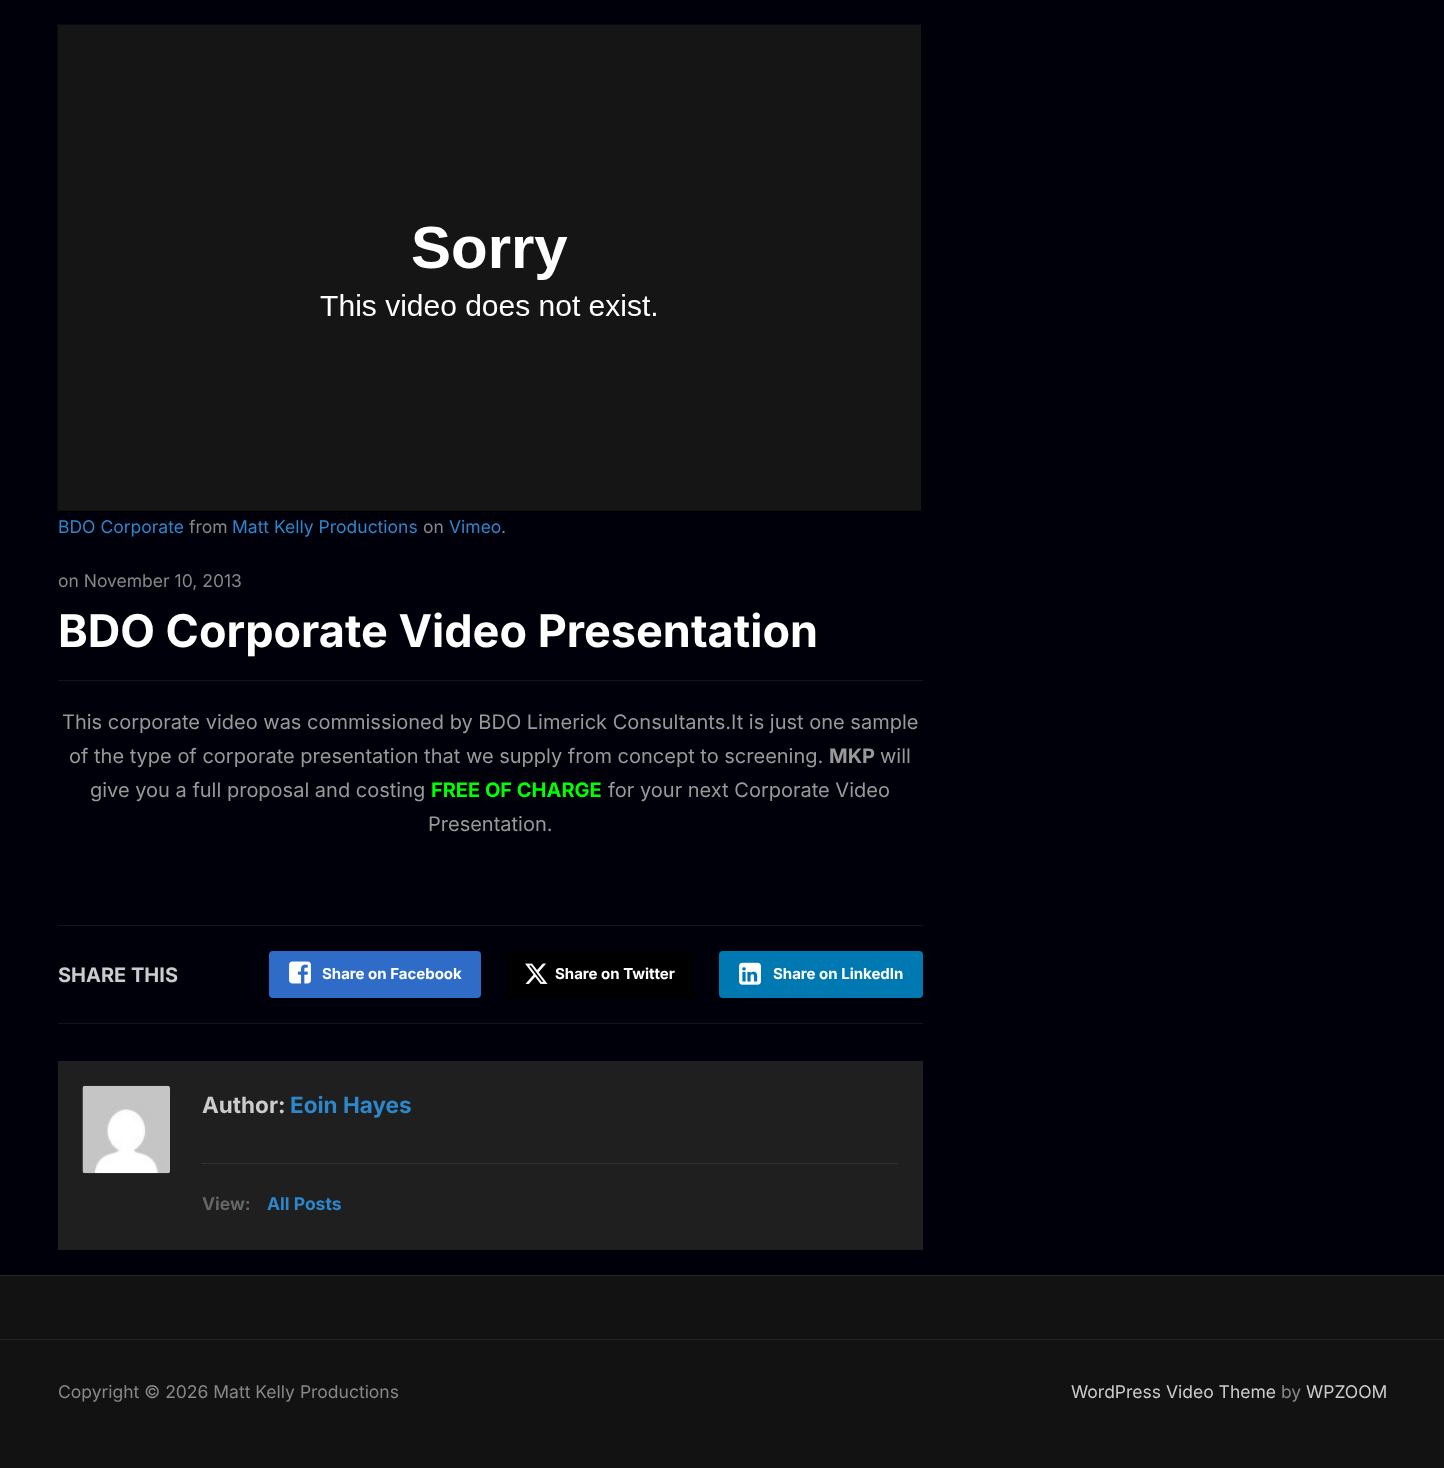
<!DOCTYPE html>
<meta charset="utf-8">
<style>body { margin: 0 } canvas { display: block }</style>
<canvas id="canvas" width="1444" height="1468"></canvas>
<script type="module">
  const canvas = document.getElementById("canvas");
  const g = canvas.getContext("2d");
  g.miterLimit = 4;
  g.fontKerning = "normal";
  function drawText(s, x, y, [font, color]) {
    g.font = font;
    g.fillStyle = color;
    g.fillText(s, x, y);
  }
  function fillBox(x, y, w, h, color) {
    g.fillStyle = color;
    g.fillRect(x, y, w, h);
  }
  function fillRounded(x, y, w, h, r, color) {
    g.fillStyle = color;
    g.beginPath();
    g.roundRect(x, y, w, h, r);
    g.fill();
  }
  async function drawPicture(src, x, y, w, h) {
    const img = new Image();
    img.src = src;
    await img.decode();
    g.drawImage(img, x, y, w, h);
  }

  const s1 = ["17.5px Inter", "#2D87CC"];
  const s2 = ["17.5px Inter", "#888888"];
  const s3 = ["bold 45px Inter", "#FFFFFF"];
  const s4 = ["20px Inter", "#999999"];
  const s5 = ["bold 20px Inter", "#999999"];
  const s6 = ["bold 20px Inter", "#00FF00"];
  const s7 = ["bold 20px Inter", "#CCCCCC"];
  const s8 = ["bold 15px Inter", "#FFFFFF"];
  const s9 = ["bold 22.5px Inter", "#CCCCCC"];
  const s10 = ["bold 22.5px Inter", "#2D87CC"];
  const s11 = ["bold 17.5px Inter", "#646668"];
  const s12 = ["bold 17.5px Inter", "#2D87CC"];
  const s13 = ["17.5px Inter", "#CCCCCC"];

  fillBox(0, 0, 1444, 1468, "#00000A");
  await drawPicture("pic1.png", 57, 24, 864, 487);
  drawText("BDO Corporate", 58, 533, s1);
  drawText("from", 189, 533, s2);
  drawText("Matt Kelly Productions", 232, 533, s1);
  drawText("on", 423, 533, s2);
  drawText("Vimeo", 449, 533, s1);
  drawText(".", 501, 533, s2);
  drawText("on November 10, 2013", 58, 587, s2);
  fillBox(58, 680, 865, 1, "#14141E");
  drawText("BDO Corporate Video Presentation", 58, 647, s3);
  drawText("This corporate video was commissioned by BDO Limerick Consultants.It is just one sample", 62, 729, s4);
  drawText("of the type of corporate presentation that we supply from concept to screening.", 69, 763, s4);
  drawText("MKP", 829, 763, s5);
  drawText("will", 880, 763, s4);
  drawText("give you a full proposal and costing", 90, 797, s4);
  drawText("FREE OF CHARGE", 431, 797, s6);
  drawText("for your next Corporate Video", 608, 797, s4);
  drawText("Presentation.", 428, 831, s4);
  fillBox(58, 925, 865, 1, "#14141E");
  fillBox(58, 1023, 865, 1, "#14141E");
  drawText("SHARE THIS", 58, 982, s7);
  fillRounded(269, 951, 212, 47, 4, "#2E6CC8");
  await drawPicture("pic2.png", 289, 961, 22, 23);
  drawText("Share on Facebook", 322, 979, s8);
  fillRounded(506, 951, 188, 47, 4, "#000000");
  await drawPicture("pic3.png", 525, 963, 23, 21);
  drawText("Share on Twitter", 555, 979, s8);
  fillRounded(719, 951, 204, 47, 4, "#0079B2");
  await drawPicture("pic4.png", 739, 962, 22, 23);
  drawText("Share on LinkedIn", 773, 979, s8);
  fillBox(58, 1061, 865, 189, "#1F1F1F");
  await drawPicture("pic5.png", 82, 1085, 88, 89);
  drawText("Author:", 202, 1113, s9);
  drawText("Eoin Hayes", 290, 1113, s10);
  fillBox(201, 1163, 697, 1, "#313131");
  drawText("View:", 202, 1210, s11);
  drawText("All Posts", 267, 1210, s12);
  fillBox(0, 1276, 1444, 192, "#121212");
  fillBox(0, 1275, 1444, 1, "#252525");
  fillBox(0, 1339, 1444, 1, "#252525");
  drawText("Copyright © 2026 Matt Kelly Productions", 58, 1398, s2);
  drawText("WordPress Video Theme", 1071, 1398, s13);
  drawText("by", 1281, 1398, s2);
  drawText("WPZOOM", 1306, 1398, s13);
</script>
